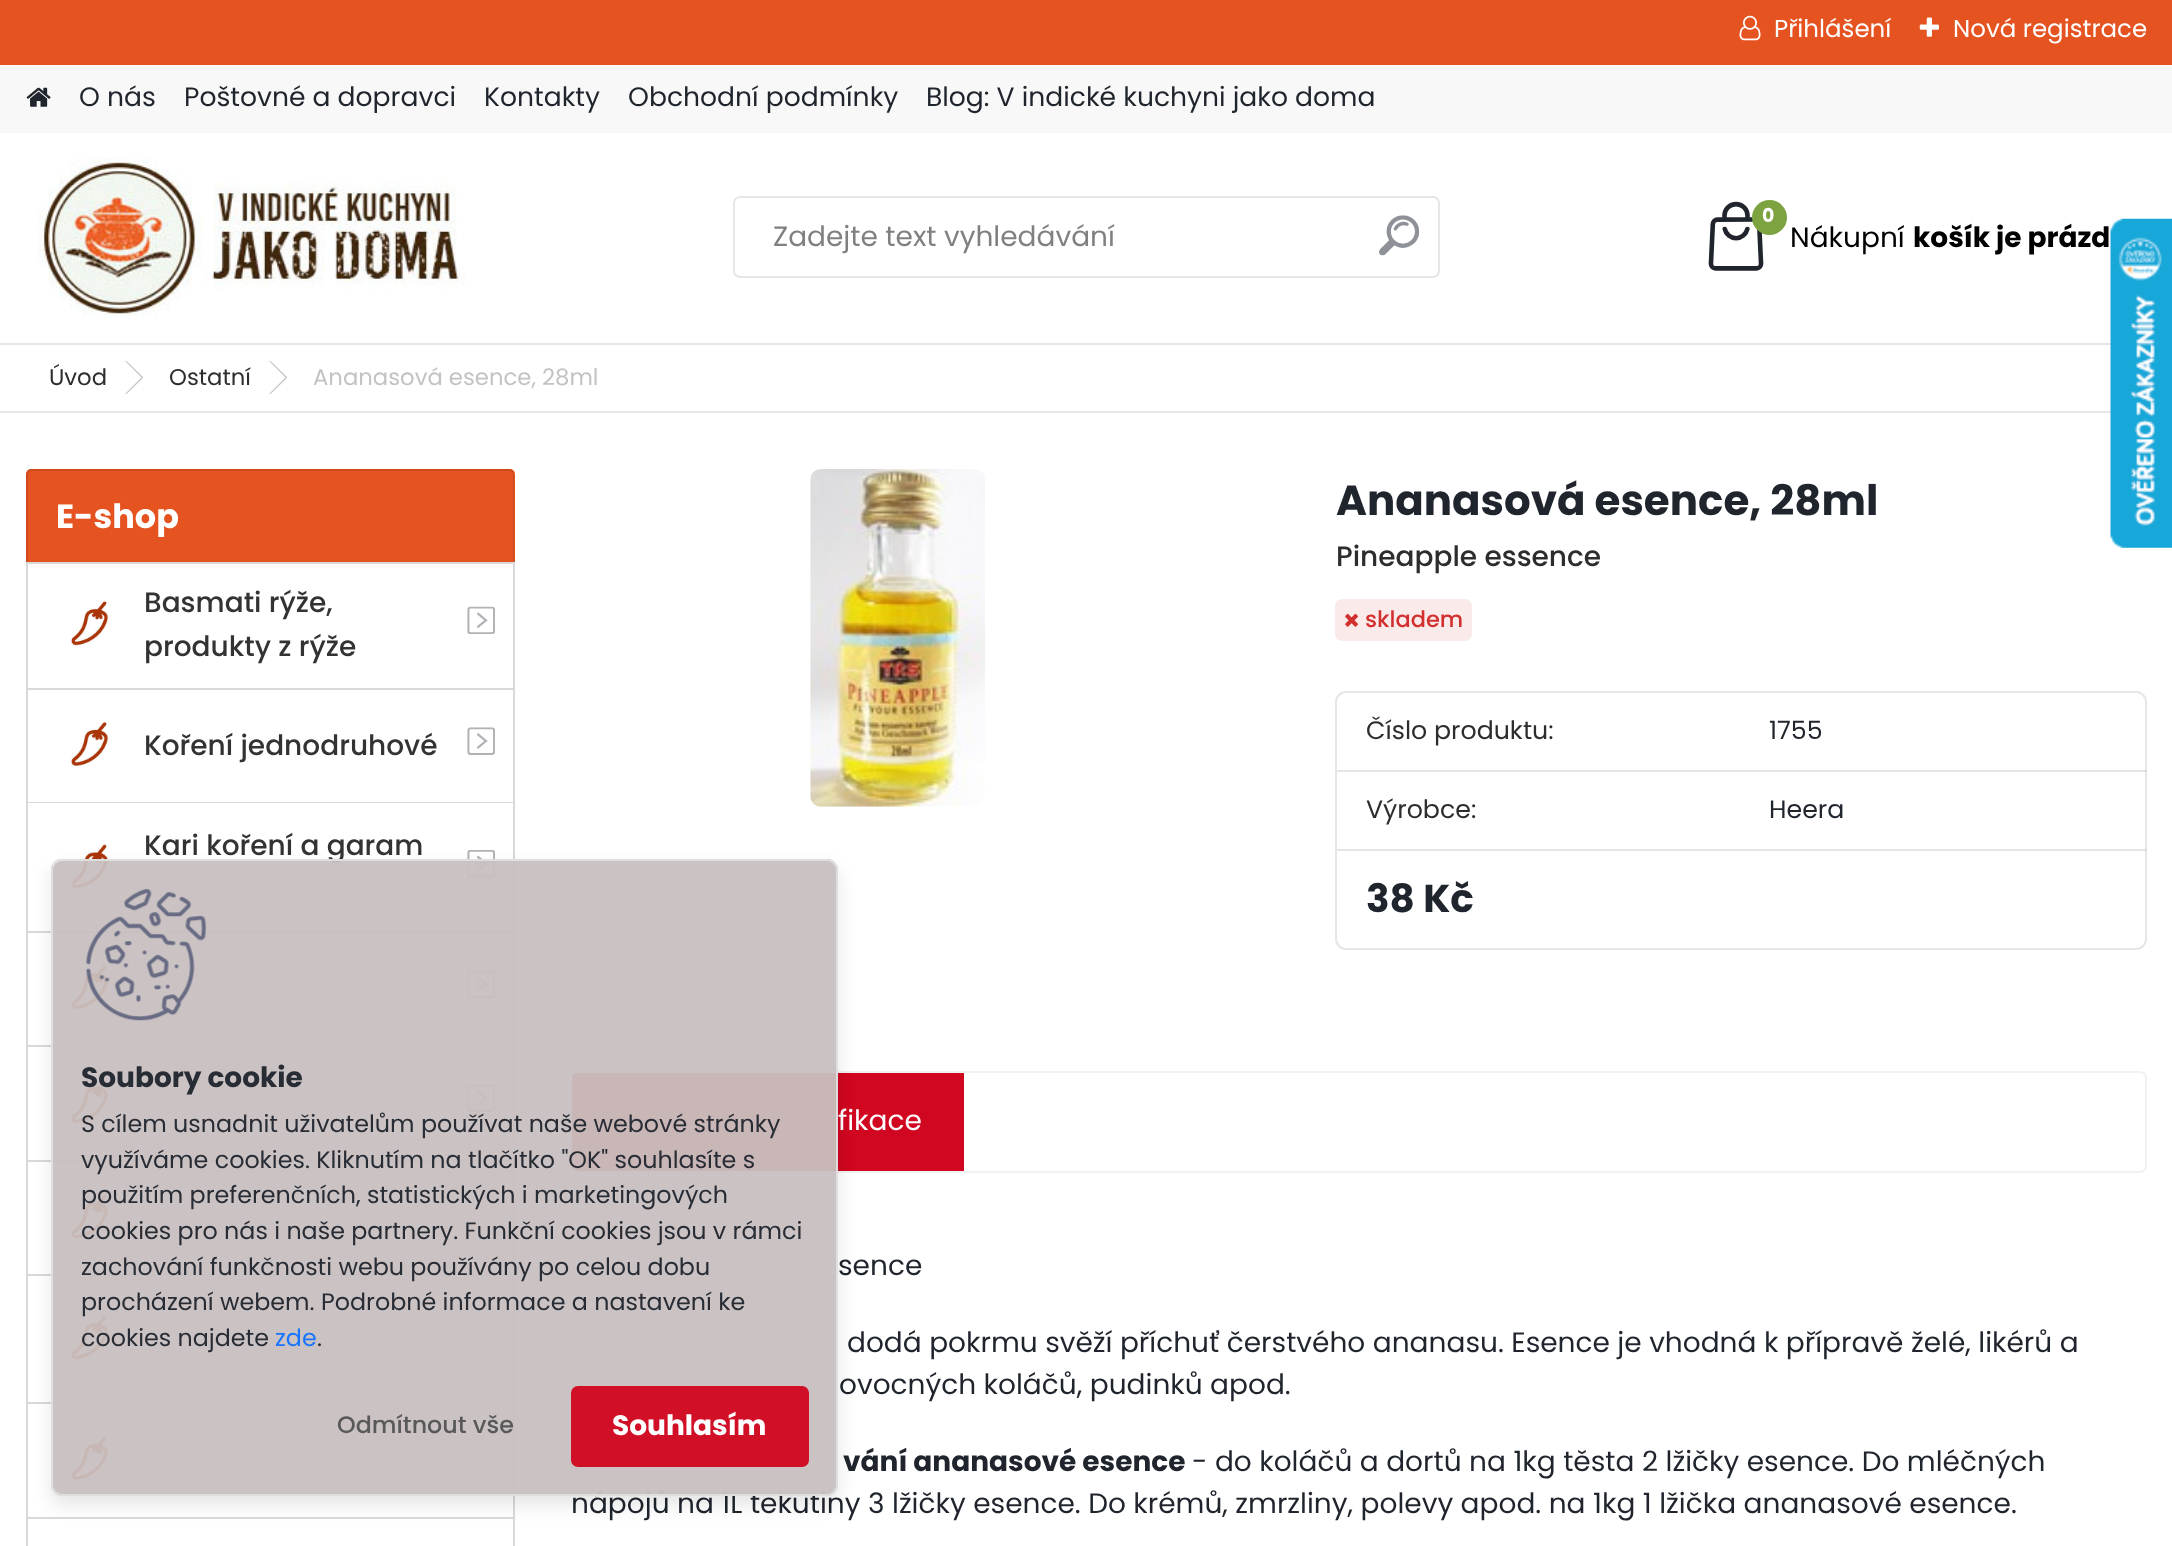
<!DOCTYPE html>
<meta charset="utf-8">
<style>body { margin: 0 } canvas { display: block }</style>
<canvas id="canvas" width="2172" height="1546"></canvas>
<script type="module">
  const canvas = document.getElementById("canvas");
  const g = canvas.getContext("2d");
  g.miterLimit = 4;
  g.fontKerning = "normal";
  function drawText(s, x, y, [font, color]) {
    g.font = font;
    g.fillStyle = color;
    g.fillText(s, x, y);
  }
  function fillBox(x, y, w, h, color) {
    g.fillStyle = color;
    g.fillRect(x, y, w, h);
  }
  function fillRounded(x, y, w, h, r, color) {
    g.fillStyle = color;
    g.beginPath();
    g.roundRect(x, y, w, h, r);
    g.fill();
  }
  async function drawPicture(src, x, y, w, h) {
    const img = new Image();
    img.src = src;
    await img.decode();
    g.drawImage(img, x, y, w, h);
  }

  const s1 = ["24.5px Poppins", "#FFFFFF"];
  const s2 = ["26.6px Poppins", "#1F242D"];
  const s3 = ["28px Poppins", "#808080"];
  const s4 = ["bold 19px Poppins", "#FFFFFF"];
  const s5 = ["28px Poppins", "#000000"];
  const s6 = ["bold 28px Poppins", "#000000"];
  const s7 = ["22.75px Poppins", "#2D2D2D"];
  const s8 = ["22.75px Poppins", "#C3C3C3"];
  const s9 = ["bold 33.5px Poppins", "#FFFFFF"];
  const s10 = ["500 28px Poppins", "#333333"];
  const s11 = ["bold 42px Poppins", "#1F242D"];
  const s12 = ["500 28px Poppins", "#2D2D2D"];
  const s13 = ["500 22.5px Poppins", "#D22F2F"];
  const s14 = ["25.25px Poppins", "#2D2D2D"];
  const s15 = ["25.25px Poppins", "#1F242D"];
  const s16 = ["bold 39px Poppins", "#1F242D"];
  const s17 = ["28px Poppins", "#FFFFFF"];
  const s18 = ["28px Poppins", "#1F242D"];
  const s19 = ["bold 28px Poppins", "#1F242D"];
  const s20 = ["bold 28px Poppins", "#282C35"];
  const s21 = ["23.8px Poppins", "#282C35"];
  const s22 = ["23.8px Poppins", "#1975FD"];
  const s23 = ["500 23.8px Poppins", "#595959"];
  const s24 = ["bold 28px Poppins", "#FFFFFF"];

  fillBox(0, 0, 2172, 1546, "#FFFFFF");
  fillBox(0, 0, 2172, 65, "#E55320");
  await drawPicture("pic1.png", 1739, 15, 22, 26);
  drawText("Přihlášení", 1774, 37, s1);
  await drawPicture("pic2.png", 1919, 17, 20, 20);
  drawText("Nová registrace", 1953, 37, s1);
  fillBox(0, 343, 2111, 2, "#E6E6E6");
  fillBox(0, 65, 2172, 68, "#F8F8F8");
  await drawPicture("pic3.png", 26, 87, 25, 20);
  drawText("O nás", 79, 106, s2);
  drawText("Poštovné a dopravci", 184, 106, s2);
  drawText("Kontakty", 484, 106, s2);
  drawText("Obchodní podmínky", 628, 106, s2);
  drawText("Blog: V indické kuchyni jako doma", 926, 106, s2);
  await drawPicture("pic4.png", 37, 157, 428, 161);
  g.beginPath();
  g.roundRect(734, 197, 705, 80, 6);
  g.strokeStyle = "#E6E6E6";
  g.lineWidth = 2;
  g.stroke();
  drawText("Zadejte text vyhledávání", 773, 246, s3);
  await drawPicture("pic5.png", 1379, 215, 40, 41);
  await drawPicture("pic6.png", 1708, 201, 56, 70);
  g.fillStyle = "#7DA340";
  g.beginPath();
  g.arc(1769.5, 217.5, 17.5, 0, Math.PI * 2);
  g.fill();
  drawText("0", 1762, 222, s4);
  drawText("Nákupní", 1790, 247, s5);
  drawText("košík je prázd", 1913, 247, s6);
  fillBox(0, 411, 2111, 2, "#E6E6E6");
  drawText("Úvod", 49, 385, s7);
  g.fillStyle = "#C3C3C3";
  g.beginPath();
  g.moveTo(125, 361);
  g.lineTo(126.5, 361);
  g.lineTo(143.5, 377.5);
  g.lineTo(141.5, 377.5);
  g.closePath();
  g.fill();
  g.beginPath();
  g.moveTo(141.5, 377.5);
  g.lineTo(143.5, 377.5);
  g.lineTo(126.5, 394);
  g.lineTo(125, 394);
  g.closePath();
  g.fill();
  drawText("Ostatní", 169, 385, s7);
  g.fillStyle = "#C3C3C3";
  g.beginPath();
  g.moveTo(269, 361);
  g.lineTo(270.5, 361);
  g.lineTo(287.5, 377.5);
  g.lineTo(285.5, 377.5);
  g.closePath();
  g.fill();
  g.beginPath();
  g.moveTo(285.5, 377.5);
  g.lineTo(287.5, 377.5);
  g.lineTo(270.5, 394);
  g.lineTo(269, 394);
  g.closePath();
  g.fill();
  drawText("Ananasová esence, 28ml", 313, 385, s8);
  fillBox(513, 562, 2, 984, "#D9D9D9");
  fillBox(26, 688, 489, 2, "#D9D9D9");
  fillBox(26, 562, 2, 128, "#D9D9D9");
  g.beginPath();
  g.moveTo(26, 474);
  g.lineTo(26, 564);
  g.lineTo(515, 564);
  g.lineTo(515, 476);
  g.lineTo(514, 474);
  g.lineTo(514, 562);
  g.lineTo(26, 562);
  g.closePath();
  g.fill();
  g.fillStyle = "#E55320";
  g.beginPath();
  g.roundRect(26, 469, 489, 93, [5, 5, 0, 0]);
  g.fill();
  g.fillStyle = "rgba(0, 0, 0, 0.1)";
  g.beginPath();
  g.moveTo(32, 469);
  g.lineTo(509, 469);
  g.bezierCurveTo(512, 469, 514, 471, 514, 474);
  g.lineTo(514, 562);
  g.lineTo(26, 562);
  g.lineTo(26, 474);
  g.bezierCurveTo(26, 471, 29, 469, 32, 469);
  g.closePath();
  g.moveTo(32, 471);
  g.lineTo(509, 471);
  g.bezierCurveTo(511, 471, 513, 472, 513, 474);
  g.lineTo(513, 562);
  g.lineTo(28, 562);
  g.lineTo(28, 474);
  g.bezierCurveTo(28, 472, 30, 471, 32, 471);
  g.closePath();
  g.fill("evenodd");
  drawText("E-shop", 56, 528, s9);
  await drawPicture("pic7.png", 71, 600, 38, 46);
  drawText("Basmati rýže,", 144, 612, s10);
  await drawPicture("pic8.png", 467, 606, 28, 28);
  drawText("produkty z rýže", 144, 656, s10);
  fillBox(26, 802, 489, 1, "#D9D9D9");
  fillBox(26, 690, 2, 113, "#D9D9D9");
  await drawPicture("pic9.png", 71, 721, 38, 46);
  drawText("Koření jednodruhové", 144, 755, s10);
  await drawPicture("pic10.png", 467, 727, 28, 28);
  fillBox(26, 931, 489, 2, "#D9D9D9");
  fillBox(26, 803, 2, 130, "#D9D9D9");
  await drawPicture("pic11.png", 71, 843, 38, 46);
  drawText("Kari koření a garam", 144, 855, s10);
  await drawPicture("pic12.png", 467, 850, 28, 28);
  fillBox(26, 1045, 489, 2, "#D9D9D9");
  fillBox(26, 933, 2, 114, "#D9D9D9");
  await drawPicture("pic7.png", 71, 964, 38, 46);
  await drawPicture("pic8.png", 467, 970, 28, 28);
  fillBox(26, 1160, 489, 2, "#D9D9D9");
  fillBox(26, 1047, 2, 115, "#D9D9D9");
  await drawPicture("pic9.png", 71, 1078, 38, 46);
  await drawPicture("pic10.png", 467, 1084, 28, 28);
  fillBox(26, 1274, 489, 2, "#D9D9D9");
  fillBox(26, 1162, 2, 114, "#D9D9D9");
  await drawPicture("pic11.png", 71, 1193, 38, 46);
  fillBox(26, 1402, 489, 2, "#D9D9D9");
  fillBox(26, 1276, 2, 128, "#D9D9D9");
  await drawPicture("pic7.png", 71, 1314, 38, 46);
  fillBox(26, 1517, 489, 2, "#D9D9D9");
  fillBox(26, 1404, 2, 142, "#D9D9D9");
  await drawPicture("pic9.png", 71, 1435, 38, 46);
  await drawPicture("pic13.png", 810, 469, 175, 338);
  drawText("Ananasová esence, 28ml", 1336, 515, s11);
  drawText("Pineapple essence", 1336, 566, s12);
  fillRounded(1335, 599, 137, 42, 7, "#FBEAEA");
  await drawPicture("pic14.png", 1345, 613, 13, 14);
  drawText("skladem", 1365, 627, s13);
  g.beginPath();
  g.roundRect(1336, 692, 810, 257, 10);
  g.stroke();
  fillBox(1337, 770, 809, 2, "rgba(0, 0, 0, 0.1)");
  drawText("Číslo produktu:", 1366, 739, s14);
  drawText("1755", 1769, 739, s15);
  fillBox(1337, 849, 809, 2, "rgba(0, 0, 0, 0.1)");
  drawText("Výrobce:", 1366, 818, s14);
  drawText("Heera", 1769, 818, s15);
  drawText("38 Kč", 1366, 912, s16);
  g.beginPath();
  g.roundRect(572, 1072, 1574, 100, 6);
  g.strokeStyle = "#F2F2F2";
  g.stroke();
  g.fillStyle = "#D10620";
  g.beginPath();
  g.roundRect(572, 1073, 392, 98, [5, 0, 0, 5]);
  g.fill();
  drawText("fikace", 838, 1130, s17);
  drawText("sence", 838, 1275, s18);
  drawText("dodá pokrmu svěží příchuť čerstvého ananasu. Esence je vhodná k přípravě želé, likérů a", 847, 1352, s18);
  drawText("ovocných koláčů, pudinků apod.", 839, 1394, s18);
  drawText("vání ananasové esence", 843, 1471, s19);
  drawText("- do koláčů a dortů na 1kg těsta 2 lžičky esence. Do mléčných", 1192, 1471, s18);
  drawText("nápojů na 1L tekutiny 3 lžičky esence. Do krémů, zmrzliny, polevy apod. na 1kg 1 lžička ananasové esence.", 571, 1513, s18);
  await drawPicture("pic15.png", 2110, 218, 62, 330);
  g.save();
  g.beginPath();
  g.moveTo(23, 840);
  g.lineTo(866, 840);
  g.lineTo(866, 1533);
  g.lineTo(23, 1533);
  g.closePath();
  g.moveTo(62, 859);
  g.lineTo(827, 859);
  g.bezierCurveTo(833, 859, 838, 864, 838, 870);
  g.lineTo(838, 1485);
  g.bezierCurveTo(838, 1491, 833, 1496, 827, 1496);
  g.lineTo(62, 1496);
  g.bezierCurveTo(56, 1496, 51, 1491, 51, 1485);
  g.lineTo(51, 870);
  g.bezierCurveTo(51, 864, 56, 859, 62, 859);
  g.closePath();
  g.clip("evenodd");
  g.fillStyle = "rgba(0, 0, 0, 0.1)";
  g.filter = "blur(9px)";
  g.beginPath();
  g.roundRect(51, 868, 787, 637, 11);
  g.fill();
  g.filter = "none";
  g.restore();
  fillRounded(51, 859, 787, 637, 11, "rgba(200, 192, 192, 0.95)");
  g.beginPath();
  g.roundRect(52, 860, 785, 635, 10);
  g.strokeStyle = "rgba(224, 224, 224, 0.95)";
  g.stroke();
  await drawPicture("pic16.png", 86, 889, 121, 132);
  drawText("Soubory cookie", 81, 1087, s20);
  drawText("S cílem usnadnit uživatelům používat naše webové stránky", 81, 1132, s21);
  drawText("využíváme cookies. Kliknutím na tlačítko \"OK\" souhlasíte s", 81, 1168, s21);
  drawText("použitím preferenčních, statistických i marketingových", 81, 1203, s21);
  drawText("cookies pro nás i naše partnery. Funkční cookies jsou v rámci", 81, 1239, s21);
  drawText("zachování funkčnosti webu používány po celou dobu", 81, 1275, s21);
  drawText("procházení webem. Podrobné informace a nastavení ke", 81, 1310, s21);
  drawText("cookies najdete", 81, 1346, s21);
  drawText("zde", 275, 1346, s22);
  drawText(".", 317, 1346, s21);
  drawText("Odmítnout vše", 337, 1433, s23);
  fillRounded(571, 1386, 238, 81, 7, "rgba(209, 6, 32, 0.95)");
  drawText("Souhlasím", 612, 1435, s24);
</script>
